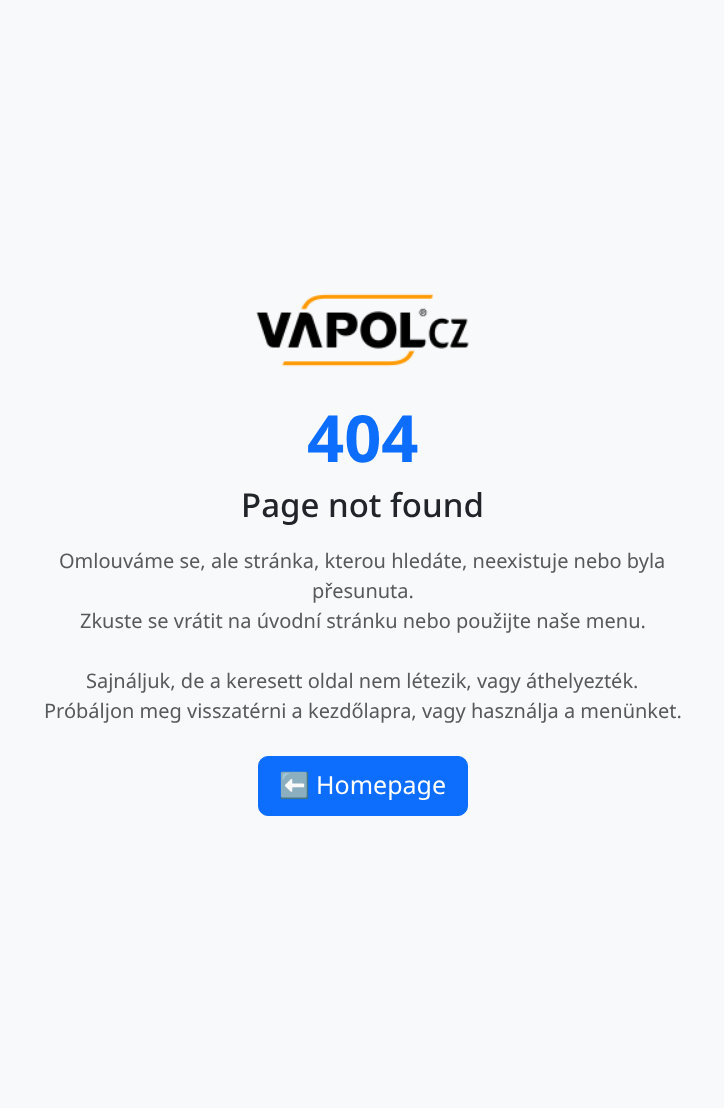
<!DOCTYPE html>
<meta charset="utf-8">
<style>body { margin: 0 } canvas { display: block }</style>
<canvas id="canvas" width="724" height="1108"></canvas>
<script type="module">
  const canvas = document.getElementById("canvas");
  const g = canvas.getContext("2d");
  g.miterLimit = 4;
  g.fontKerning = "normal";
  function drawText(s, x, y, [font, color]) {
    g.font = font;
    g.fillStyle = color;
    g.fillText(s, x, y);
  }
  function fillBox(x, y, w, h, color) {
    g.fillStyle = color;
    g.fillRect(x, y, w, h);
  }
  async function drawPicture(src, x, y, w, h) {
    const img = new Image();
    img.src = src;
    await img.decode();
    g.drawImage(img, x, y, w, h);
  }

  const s1 = ["bold 65px Noto Sans", "#0D6EFD"];
  const s2 = ["500 33px Noto Sans", "#212529"];
  const s3 = ["20px Noto Sans", "#575A5D"];
  const s4 = ["25px Noto Color Emoji", "#FFFFFF"];
  const s5 = ["25px Noto Sans", "#FFFFFF"];

  fillBox(0, 0, 724, 1108, "#F8F9FA");
  await drawPicture("pic1.png", 256, 293, 213, 74);
  drawText("404", 307, 462, s1);
  drawText("Page not found", 241, 517, s2);
  drawText("Omlouváme se, ale stránka, kterou hledáte, neexistuje nebo byla", 59, 568, s3);
  drawText("přesunuta.", 312, 598, s3);
  drawText("Zkuste se vrátit na úvodní stránku nebo použijte naše menu.", 80, 628, s3);
  drawText("Sajnáljuk, de a keresett oldal nem létezik, vagy áthelyezték.", 86, 688, s3);
  drawText("Próbáljon meg visszatérni a kezdőlapra, vagy használja a menünket.", 44, 718, s3);
  g.fillStyle = "#0D6EFD";
  g.beginPath();
  g.roundRect(258.5, 756.5, 209, 59, 9.5);
  g.fill();
  g.strokeStyle = "#0D6EFD";
  g.stroke();
  drawText("⬅", 279, 794, s4);
  drawText("Homepage", 316, 794, s5);
</script>
